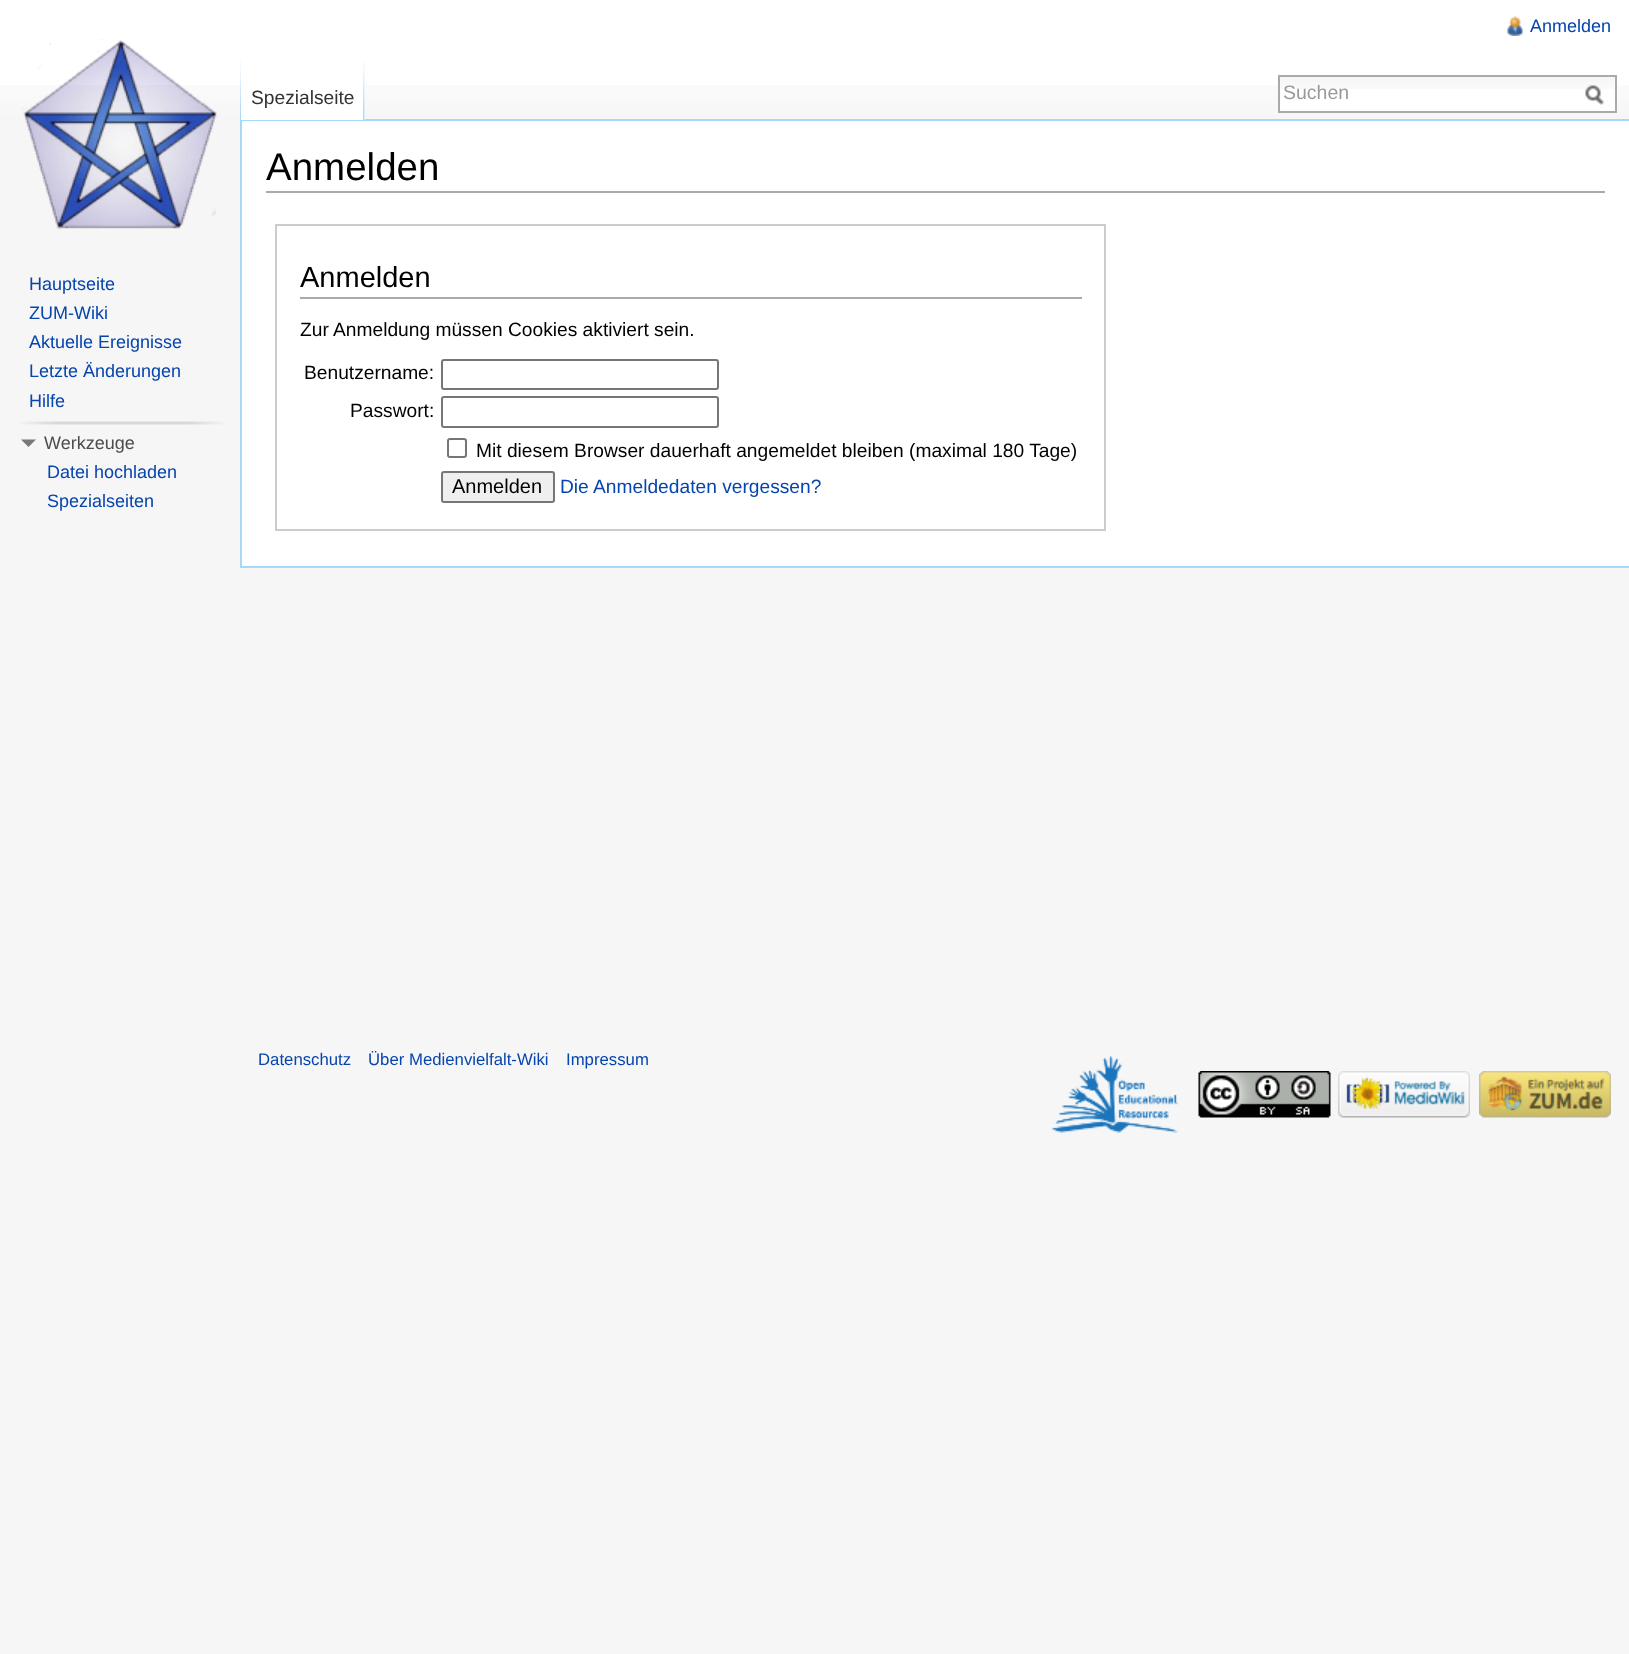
<!DOCTYPE html>
<meta charset="utf-8">
<style>body { margin: 0 } canvas { display: block }</style>
<canvas id="canvas" width="1629" height="1654"></canvas>
<script type="module">
  const canvas = document.getElementById("canvas");
  const g = canvas.getContext("2d");
  g.miterLimit = 4;
  g.fontKerning = "normal";
  function drawText(s, x, y, [font, color]) {
    g.font = font;
    g.fillStyle = color;
    g.fillText(s, x, y);
  }
  function fillBox(x, y, w, h, color) {
    g.fillStyle = color;
    g.fillRect(x, y, w, h);
  }
  async function drawPicture(src, x, y, w, h) {
    const img = new Image();
    img.src = src;
    await img.decode();
    g.drawImage(img, x, y, w, h);
  }

  const s1 = ["18px Liberation Sans", "#0645AD"];
  const s2 = ["19.2px Liberation Sans", "#333333"];
  const s3 = ["19.5px Liberation Sans", "#999999"];
  const s4 = ["18px Liberation Sans", "#4D4D4D"];
  const s5 = ["38.5px Liberation Sans", "#000000"];
  const s6 = ["29px Liberation Sans", "#000000"];
  const s7 = ["19.2px Liberation Sans", "#000000"];
  const s8 = ["20px Liberation Sans", "#000000"];
  const s9 = ["19.2px Liberation Sans", "#0645AD"];
  const s10 = ["16.75px Liberation Sans", "#0645AD"];

  fillBox(0, 0, 1629, 1654, "#F6F6F6");
  fillBox(0, 0, 1629, 85, "#FFFFFF");
  await drawPicture("pic1.png", 0, 85, 1629, 35);
  await drawPicture("pic2.png", 1507, 16, 16, 20);
  drawText("Anmelden", 1530, 32, s1);
  await drawPicture("pic3.png", 240, 60, 1, 59);
  fillBox(240, 119, 1389, 2, "#A7D7F9");
  fillBox(240, 566, 1389, 2, "#A7D7F9");
  fillBox(240, 119, 2, 448, "#A7D7F9");
  fillBox(241, 85, 124, 35, "#FFFFFF");
  await drawPicture("pic4.png", 363, 61, 2, 59);
  drawText("Spezialseite", 251, 104, s2);
  fillBox(1280, 89, 335, 22, "#FFFFFF");
  await drawPicture("pic5.png", 1280, 77, 335, 12);
  g.strokeStyle = "#AAAAAA";
  g.lineWidth = 2;
  g.strokeRect(1279, 76, 337, 36);
  drawText("Suchen", 1283, 99, s3);
  await drawPicture("pic6.png", 1585, 85, 19, 20);
  await drawPicture("pic7.png", 22, 39, 195, 191);
  drawText("Hauptseite", 29, 290, s1);
  drawText("ZUM-Wiki", 29, 319, s1);
  drawText("Aktuelle Ereignisse", 29, 348, s1);
  drawText("Letzte Änderungen", 29, 377, s1);
  drawText("Hilfe", 29, 407, s1);
  await drawPicture("pic8.png", 20, 421, 204, 4);
  g.fillStyle = "#797979";
  g.beginPath();
  g.moveTo(36, 439.5);
  g.lineTo(28.5, 447);
  g.lineTo(21, 439.5);
  g.closePath();
  g.fill();
  drawText("Werkzeuge", 44, 449, s4);
  drawText("Datei hochladen", 47, 478, s1);
  drawText("Spezialseiten", 47, 507, s1);
  fillBox(242, 121, 1387, 445, "#FFFFFF");
  fillBox(266, 191, 1339, 2, "#AAAAAA");
  drawText("Anmelden", 266, 180, s5);
  g.strokeStyle = "#CCCCCC";
  g.strokeRect(276, 225, 829, 305);
  fillBox(300, 297, 782, 2, "#AAAAAA");
  drawText("Anmelden", 300, 287, s6);
  drawText("Zur Anmeldung müssen Cookies aktiviert sein.", 300, 336, s7);
  drawText("Benutzername:", 304, 379, s7);
  g.beginPath();
  g.roundRect(442, 360, 276, 29, 2);
  g.strokeStyle = "#767676";
  g.stroke();
  drawText("Passwort:", 350, 417, s7);
  g.beginPath();
  g.roundRect(442, 397, 276, 30, 2);
  g.stroke();
  g.beginPath();
  g.roundRect(448, 439, 18, 18, 2);
  g.stroke();
  drawText("Mit diesem Browser dauerhaft angemeldet bleiben (maximal 180 Tage)", 476, 457, s7);
  g.fillStyle = "#EFEFEF";
  g.beginPath();
  g.roundRect(442, 472, 112, 30, 2);
  g.fill();
  g.stroke();
  drawText("Anmelden", 452, 493, s8);
  drawText("Die Anmeldedaten vergessen?", 560, 493, s9);
  drawText("Datenschutz", 258, 1065, s10);
  drawText("Über Medienvielfalt-Wiki", 368, 1065, s10);
  drawText("Impressum", 566, 1065, s10);
  await drawPicture("pic9.png", 1051, 1055, 127, 78);
  await drawPicture("pic10.png", 1198, 1071, 133, 47);
  await drawPicture("pic11.png", 1338, 1071, 132, 47);
  await drawPicture("pic12.png", 1479, 1071, 132, 47);
</script>
